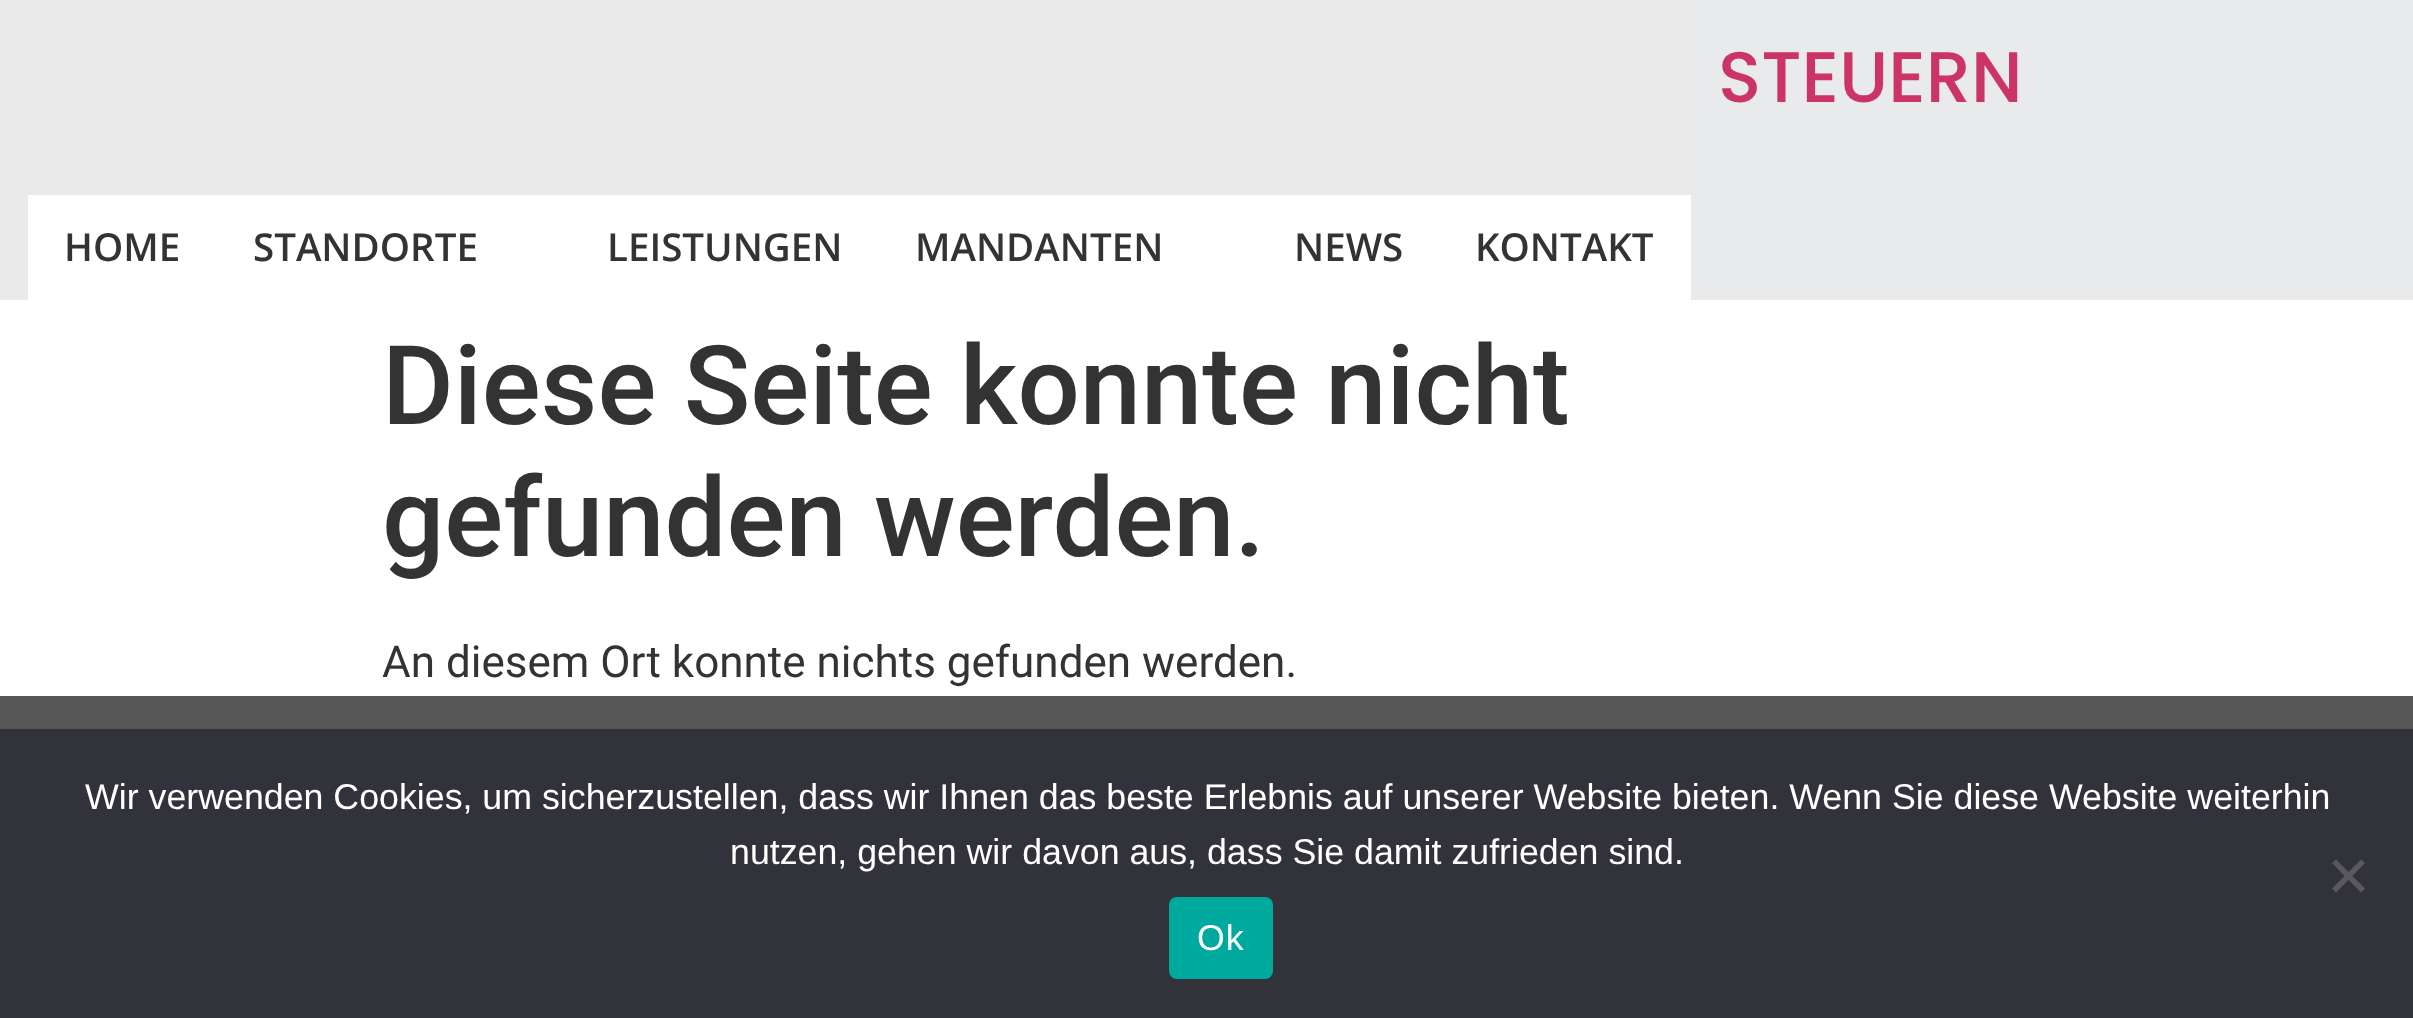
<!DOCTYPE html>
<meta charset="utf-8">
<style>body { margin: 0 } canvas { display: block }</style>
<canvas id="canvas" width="2413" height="1018"></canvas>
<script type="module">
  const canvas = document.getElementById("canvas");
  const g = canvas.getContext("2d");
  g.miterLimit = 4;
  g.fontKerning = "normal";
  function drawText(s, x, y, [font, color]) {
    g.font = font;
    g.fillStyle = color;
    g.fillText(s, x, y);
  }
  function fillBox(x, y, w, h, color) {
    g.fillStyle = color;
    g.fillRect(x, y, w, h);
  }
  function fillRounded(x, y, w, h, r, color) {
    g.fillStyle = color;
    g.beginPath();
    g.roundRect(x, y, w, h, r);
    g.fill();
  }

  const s1 = ["500 71.5px Poppins", "#CC3366"];
  const s2 = ["600 38.5px Open Sans", "#333333"];
  const s3 = ["500 110px Roboto", "#333333"];
  const s4 = ["44px Roboto", "#333333"];
  const s5 = ["35.75px Liberation Sans", "#FFFFFF"];

  fillBox(0, 0, 2413, 1018, "#FFFFFF");
  fillBox(1691, 0, 722, 300, "#E9EAEB");
  drawText("STEUERN", 1718, 102, s1);
  fillBox(0, 0, 1691, 300, "#EAEAEB");
  fillBox(28, 195, 1663, 105, "#FFFFFF");
  drawText("HOME", 64, 261, s2);
  drawText("STANDORTE", 253, 261, s2);
  drawText("LEISTUNGEN", 607, 261, s2);
  drawText("MANDANTEN", 915, 261, s2);
  drawText("NEWS", 1294, 261, s2);
  drawText("KONTAKT", 1475, 261, s2);
  drawText("Diese Seite konnte nicht", 382, 424, s3);
  drawText("gefunden werden.", 382, 556, s3);
  drawText("An diesem Ort konnte nichts gefunden werden.", 382, 677, s4);
  fillBox(0, 696, 2413, 33, "#585858");
  fillBox(0, 729, 2413, 289, "#32323A");
  drawText("Wir verwenden Cookies, um sicherzustellen, dass wir Ihnen das beste Erlebnis auf unserer Website bieten. Wenn Sie diese Website weiterhin", 85, 809, s5);
  drawText("nutzen, gehen wir davon aus, dass Sie damit zufrieden sind.", 730, 864, s5);
  g.fillStyle = "#59595D";
  g.beginPath();
  g.moveTo(2361, 859.5);
  g.lineTo(2365, 863);
  g.lineTo(2336, 892.5);
  g.lineTo(2332, 888.5);
  g.closePath();
  g.fill();
  g.beginPath();
  g.moveTo(2332, 863);
  g.lineTo(2336, 859.5);
  g.lineTo(2365, 888.5);
  g.lineTo(2361, 892.5);
  g.closePath();
  g.fill();
  fillRounded(1169, 897, 104, 82, 8, "#00A99D");
  g.letterSpacing = "1px";
  drawText("Ok", 1197, 950, s5);
</script>
